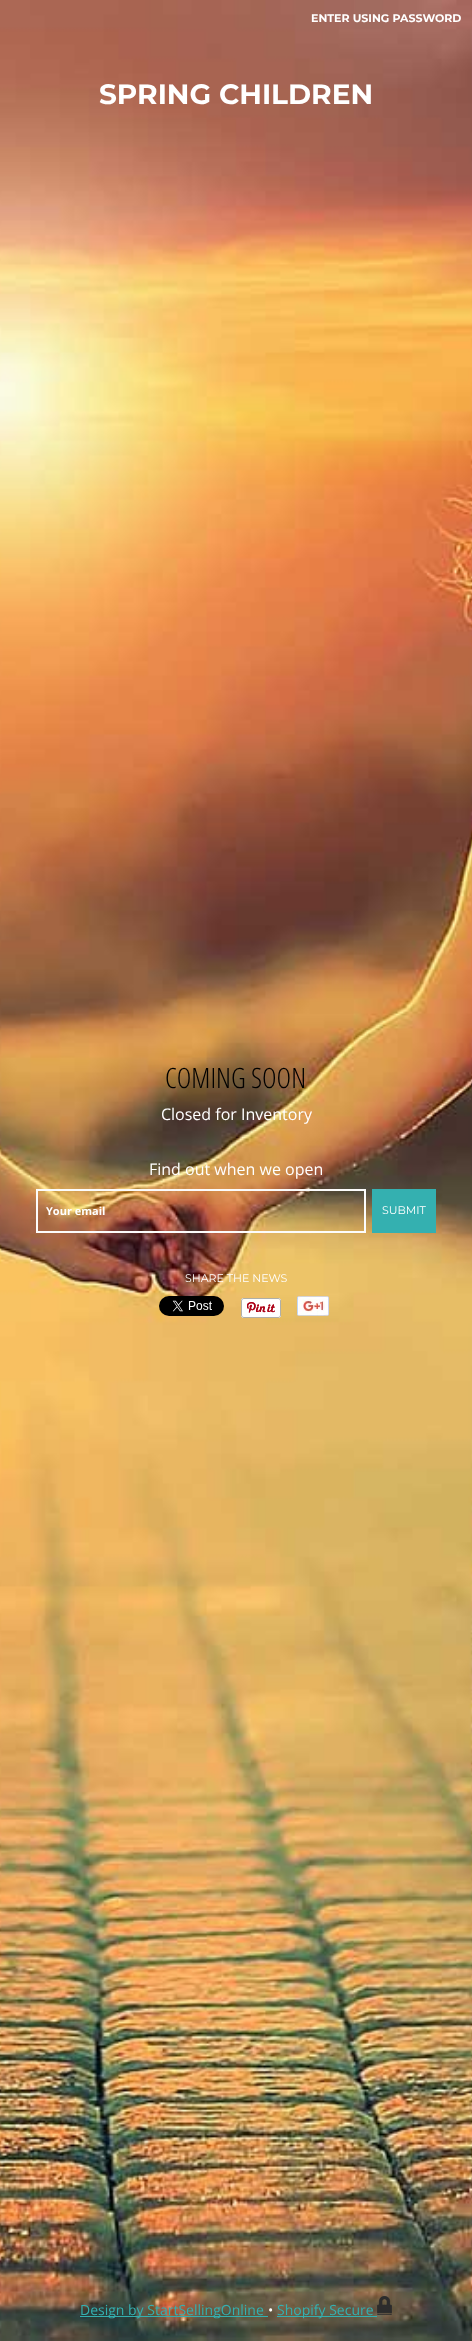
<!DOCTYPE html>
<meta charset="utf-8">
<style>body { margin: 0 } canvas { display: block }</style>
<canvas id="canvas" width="472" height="2341"></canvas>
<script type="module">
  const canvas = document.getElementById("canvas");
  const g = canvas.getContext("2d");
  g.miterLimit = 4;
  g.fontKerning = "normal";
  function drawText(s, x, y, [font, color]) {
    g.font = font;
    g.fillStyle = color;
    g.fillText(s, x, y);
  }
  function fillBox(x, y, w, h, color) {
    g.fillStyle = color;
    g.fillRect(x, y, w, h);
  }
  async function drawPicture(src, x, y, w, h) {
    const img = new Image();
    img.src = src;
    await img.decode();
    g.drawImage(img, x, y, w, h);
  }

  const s1 = ["bold 11px Montserrat", "#FFFFFF"];
  const s2 = ["bold 28px Montserrat", "#FFFFFF"];
  const s3 = ["300 28px Open Sans Condensed", "#000000"];
  const s4 = ["16px Open Sans", "#FFFFFF"];
  const s5 = ["bold 11px Open Sans", "#FFFFFF"];
  const s6 = ["11px Montserrat", "#FFFFFF"];
  const s7 = ["14px Open Sans", "#34B0B0"];
  const s8 = ["14px Open Sans", "#FFFFFF"];

  fillBox(0, 0, 472, 2341, "#FFFFFF");
  await drawPicture("pic1.png", 0, 0, 472, 2341);
  drawText("ENTER USING PASSWORD", 311, 22, s1);
  drawText("SPRING CHILDREN", 99, 104, s2);
  drawText("COMING SOON", 165, 1088, s3);
  drawText("Closed for Inventory", 161, 1120, s4);
  drawText("Find out when we open", 149, 1175, s4);
  g.strokeStyle = "#FCFCFC";
  g.lineWidth = 2;
  g.strokeRect(37, 1190, 328, 42);
  drawText("Your email", 46, 1215, s5);
  fillBox(372, 1189, 64, 44, "#34B0B0");
  drawText("SUBMIT", 382, 1214, s6);
  drawText("SHARE THE NEWS", 185, 1282, s6);
  await drawPicture("pic2.png", 159, 1296, 65, 20);
  await drawPicture("pic3.png", 241, 1298, 40, 20);
  await drawPicture("pic4.png", 297, 1296, 32, 20);
  fillBox(80, 2316, 188, 1, "#34B0B0");
  drawText("Design by StartSellingOnline", 80, 2315, s7);
  drawText("•", 268, 2315, s8);
  fillBox(277, 2316, 100, 1, "#34B0B0");
  drawText("Shopify Secure", 277, 2315, s7);
  await drawPicture("pic5.png", 377, 2296, 15, 19);
</script>
